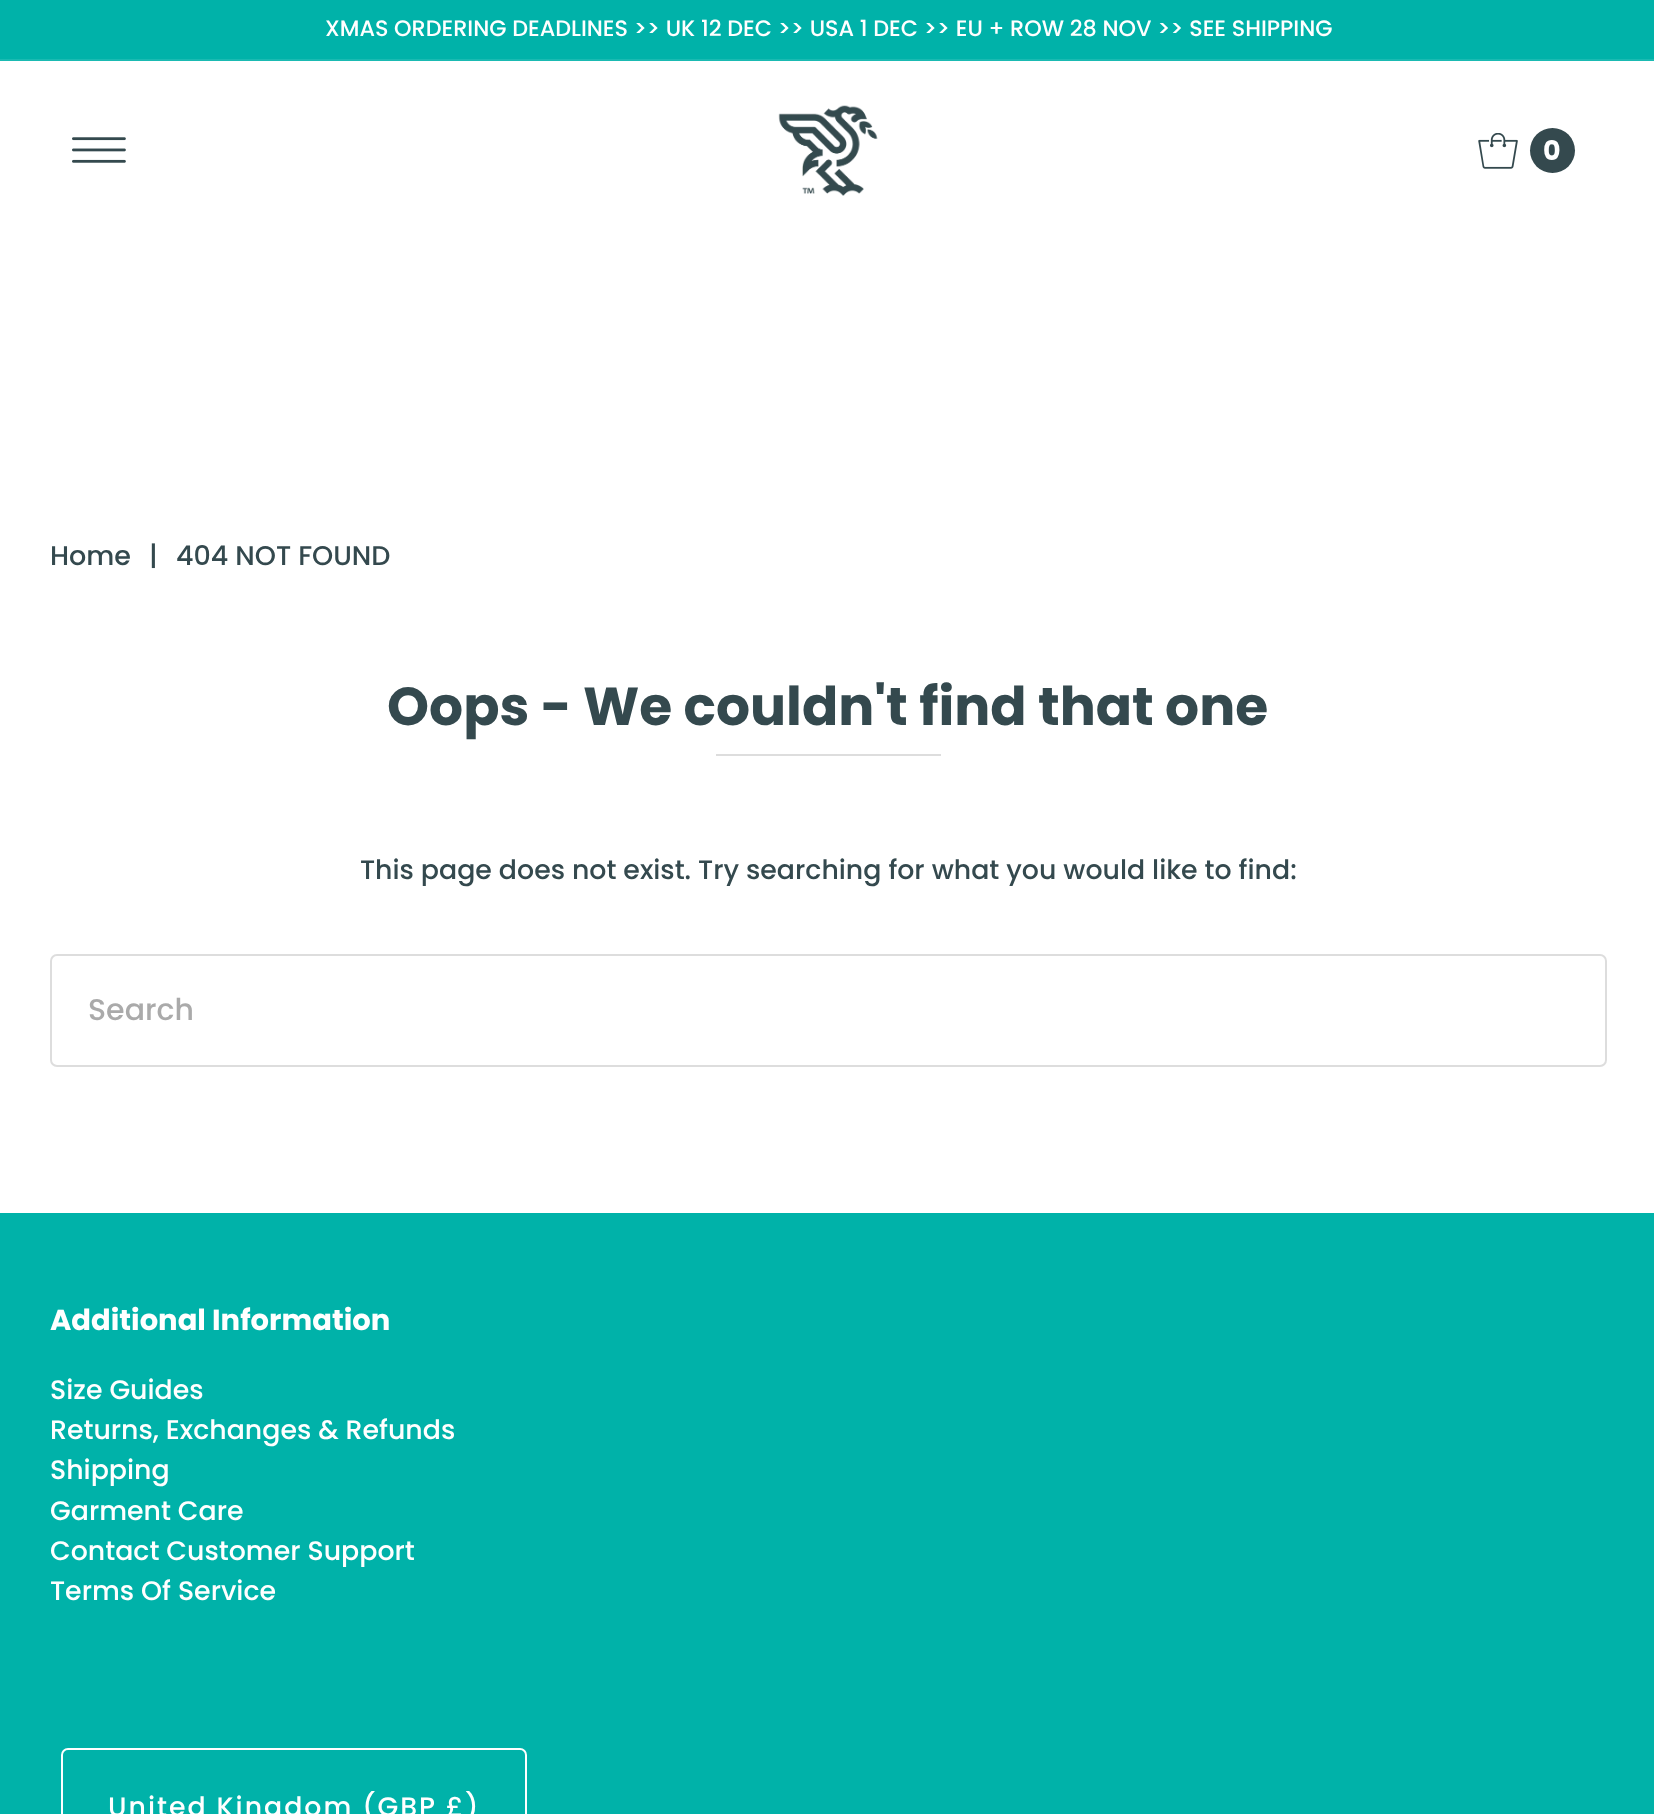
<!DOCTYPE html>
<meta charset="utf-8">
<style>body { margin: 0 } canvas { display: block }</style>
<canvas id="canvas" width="1654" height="1814"></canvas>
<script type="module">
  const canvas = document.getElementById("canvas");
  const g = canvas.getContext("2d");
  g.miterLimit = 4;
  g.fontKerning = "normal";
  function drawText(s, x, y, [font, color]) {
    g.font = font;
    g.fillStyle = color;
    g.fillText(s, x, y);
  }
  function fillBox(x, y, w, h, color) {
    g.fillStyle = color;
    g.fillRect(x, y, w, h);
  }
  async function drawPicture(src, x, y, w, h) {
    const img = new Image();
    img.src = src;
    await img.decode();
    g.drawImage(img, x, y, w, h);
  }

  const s1 = ["500 22.3px Poppins", "#FFFFFF"];
  const s2 = ["bold 27px Poppins", "#FFFFFF"];
  const s3 = ["500 27px Poppins", "#34494E"];
  const s4 = ["bold 53.5px Poppins", "#34494E"];
  const s5 = ["500 26.8px Poppins", "#34494E"];
  const s6 = ["500 30px Poppins", "#AAAAAA"];
  const s7 = ["bold 29px Poppins", "#FFFFFF"];
  const s8 = ["500 26.8px Poppins", "#FFFFFF"];

  fillBox(0, 0, 1654, 1814, "#FFFFFF");
  fillBox(0, 0, 1654, 59, "#00B2A9");
  g.wordSpacing = "-0.1px";
  drawText("XMAS ORDERING DEADLINES >> UK 12 DEC >> USA 1 DEC >> EU + ROW 28 NOV >> SEE SHIPPING", 325, 36, s1);
  fillBox(0, 59, 1654, 2, "#1ABAB2");
  await drawPicture("pic1.png", 72, 137, 54, 26);
  await drawPicture("pic2.png", 778, 105, 100, 91);
  await drawPicture("pic3.png", 1478, 133, 40, 36);
  g.fillStyle = "#34494E";
  g.beginPath();
  g.arc(1552.5, 150.5, 22.5, 0, Math.PI * 2);
  g.fill();
  g.wordSpacing = "0px";
  drawText("0", 1543, 160, s2);
  drawText("Home", 50, 565, s3);
  drawText("|", 149, 565, s3);
  drawText("404 NOT FOUND", 176, 565, s3);
  drawText("Oops - We couldn't find that one", 387, 725, s4);
  fillBox(716, 754, 225, 2, "#DDDDDD");
  drawText("This page does not exist. Try searching for what you would like to find:", 360, 879, s5);
  g.beginPath();
  g.roundRect(51, 955, 1555, 111, 6);
  g.strokeStyle = "#DDDDDD";
  g.lineWidth = 2;
  g.stroke();
  drawText("Search", 88, 1020, s6);
  fillBox(0, 1213, 1654, 601, "#00B2A9");
  drawText("Additional Information", 50, 1330, s7);
  drawText("Size Guides", 50, 1399, s8);
  drawText("Returns, Exchanges & Refunds", 50, 1439, s8);
  drawText("Shipping", 50, 1479, s8);
  drawText("Garment Care", 50, 1520, s8);
  drawText("Contact Customer Support", 50, 1560, s8);
  drawText("Terms Of Service", 50, 1600, s8);
  g.beginPath();
  g.roundRect(62, 1749, 464, 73, 6);
  g.strokeStyle = "#FFFFFF";
  g.stroke();
  g.letterSpacing = "2px";
  drawText("United Kingdom (GBP £)", 108, 1816, s8);
</script>
